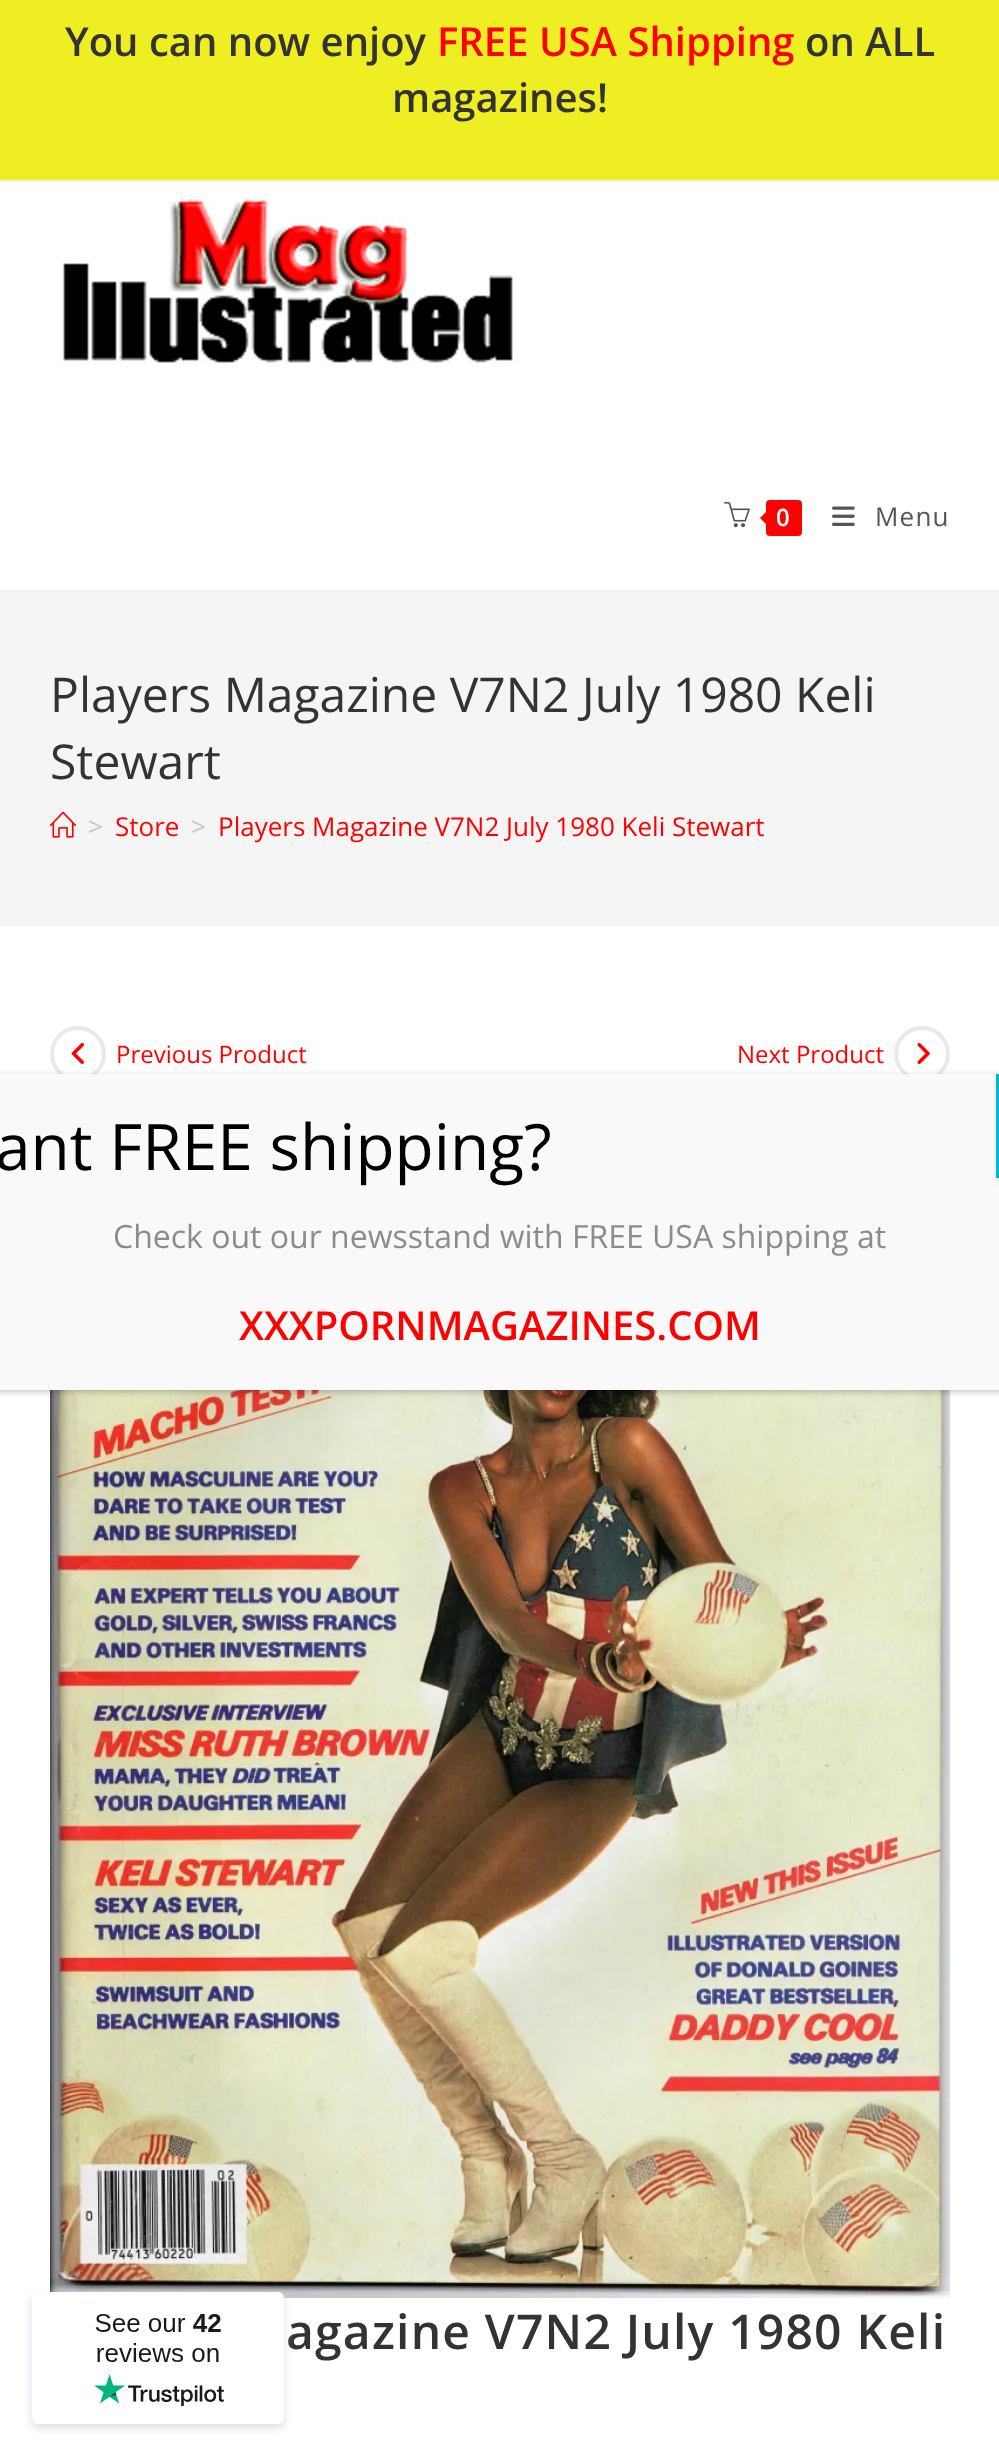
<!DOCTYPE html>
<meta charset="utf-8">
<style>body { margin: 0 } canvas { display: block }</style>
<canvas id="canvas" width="999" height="2463"></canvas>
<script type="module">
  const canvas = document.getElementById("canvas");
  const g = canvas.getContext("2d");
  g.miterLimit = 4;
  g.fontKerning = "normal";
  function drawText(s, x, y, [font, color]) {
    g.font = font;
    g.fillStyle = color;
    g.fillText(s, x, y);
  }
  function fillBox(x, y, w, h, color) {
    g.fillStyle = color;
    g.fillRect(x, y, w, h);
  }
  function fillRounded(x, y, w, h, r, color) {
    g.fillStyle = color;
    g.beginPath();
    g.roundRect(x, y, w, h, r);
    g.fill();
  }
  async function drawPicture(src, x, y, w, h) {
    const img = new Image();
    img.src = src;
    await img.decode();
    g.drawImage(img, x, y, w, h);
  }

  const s1 = ["600 40px Open Sans", "#333333"];
  const s2 = ["600 40px Open Sans", "#FF0000"];
  const s3 = ["600 24px Open Sans", "#FFFFFF"];
  const s4 = ["26px Open Sans", "#555555"];
  const s5 = ["48px Open Sans", "#333333"];
  const s6 = ["26px Open Sans", "#C6C6C6"];
  const s7 = ["26px Open Sans", "#FF0000"];
  const s8 = ["24px Open Sans", "#FF0000"];
  const s9 = ["600 48px Open Sans", "#333333"];
  const s10 = ["64px Open Sans", "#000000"];
  const s11 = ["32px Open Sans", "#8C8C8C"];

  fillBox(0, 0, 999, 2463, "#FFFFFF");
  fillBox(0, 0, 999, 180, "#EEEE22");
  fillBox(0, 180, 999, 2, "#F1F1F1");
  drawText("You can now enjoy", 65, 56, s1);
  drawText("FREE USA Shipping", 437, 56, s2);
  drawText("on ALL", 805, 56, s1);
  drawText("magazines!", 392, 112, s1);
  fillBox(0, 590, 999, 2, "#F1F1F1");
  await drawPicture("pic1.png", 63, 199, 450, 165);
  await drawPicture("pic2.png", 724, 502, 26, 26);
  fillRounded(766, 500, 36, 36, 4, "#FF0000");
  g.beginPath();
  g.moveTo(770, 508);
  g.lineTo(770, 528);
  g.lineTo(760, 518);
  g.closePath();
  g.fill();
  g.letterSpacing = "1.2px";
  drawText("0", 776, 526, s3);
  await drawPicture("pic3.png", 832, 506, 23, 20);
  drawText("Menu", 875, 526, s4);
  fillBox(0, 592, 999, 334, "#F5F5F5");
  g.letterSpacing = "0px";
  drawText("Players Magazine V7N2 July 1980 Keli", 50, 712, s5);
  drawText("Stewart", 50, 779, s5);
  await drawPicture("pic4.png", 50, 811, 26, 27);
  drawText(">", 88, 836, s6);
  drawText("Store", 115, 836, s7);
  drawText(">", 191, 836, s6);
  drawText("Players Magazine V7N2 July 1980 Keli Stewart", 218, 836, s7);
  g.beginPath();
  g.arc(78, 1054, 26, 0, Math.PI * 2);
  g.strokeStyle = "#E9E9E9";
  g.lineWidth = 4;
  g.stroke();
  await drawPicture("pic5.png", 71, 1043, 13, 21);
  drawText("Previous Product", 116, 1063, s8);
  drawText("Next Product", 737, 1063, s8);
  g.beginPath();
  g.arc(922, 1054, 26, 0, Math.PI * 2);
  g.stroke();
  await drawPicture("pic6.png", 917, 1043, 13, 21);
  await drawPicture("pic7.png", 50, 1390, 900, 908);
  g.letterSpacing = "1.2px";
  drawText("agazine V7N2 July 1980 Keli", 286, 2349, s9);
  g.fillStyle = "rgba(2, 2, 2, 0.23)";
  g.filter = "blur(3px)";
  g.beginPath();
  g.rect(-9, 1076, 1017, 316);
  g.fill();
  g.filter = "none";
  fillBox(0, 1074, 999, 316, "#F9F9F9");
  g.letterSpacing = "0px";
  drawText("ant FREE shipping?", -5, 1170, s10);
  g.fillStyle = "rgba(2, 2, 2, 0.23)";
  g.filter = "blur(3px)";
  g.beginPath();
  g.rect(998, 1076, 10, 104);
  g.fill();
  g.filter = "none";
  fillBox(996, 1074, 3, 104, "#00B7CD");
  drawText("Check out our newsstand with FREE USA shipping at", 113, 1248, s11);
  drawText("XXXPORNMAGAZINES.COM", 239, 1340, s2);
  g.fillStyle = "#DCDCE6";
  g.filter = "blur(4px)";
  g.beginPath();
  g.roundRect(32, 2296, 252, 132, 6);
  g.fill();
  g.filter = "none";
  fillRounded(32, 2292, 252, 132, 6, "#FFFFFF");
  await drawPicture("pic8.png", 94, 2314, 130, 92);
</script>
